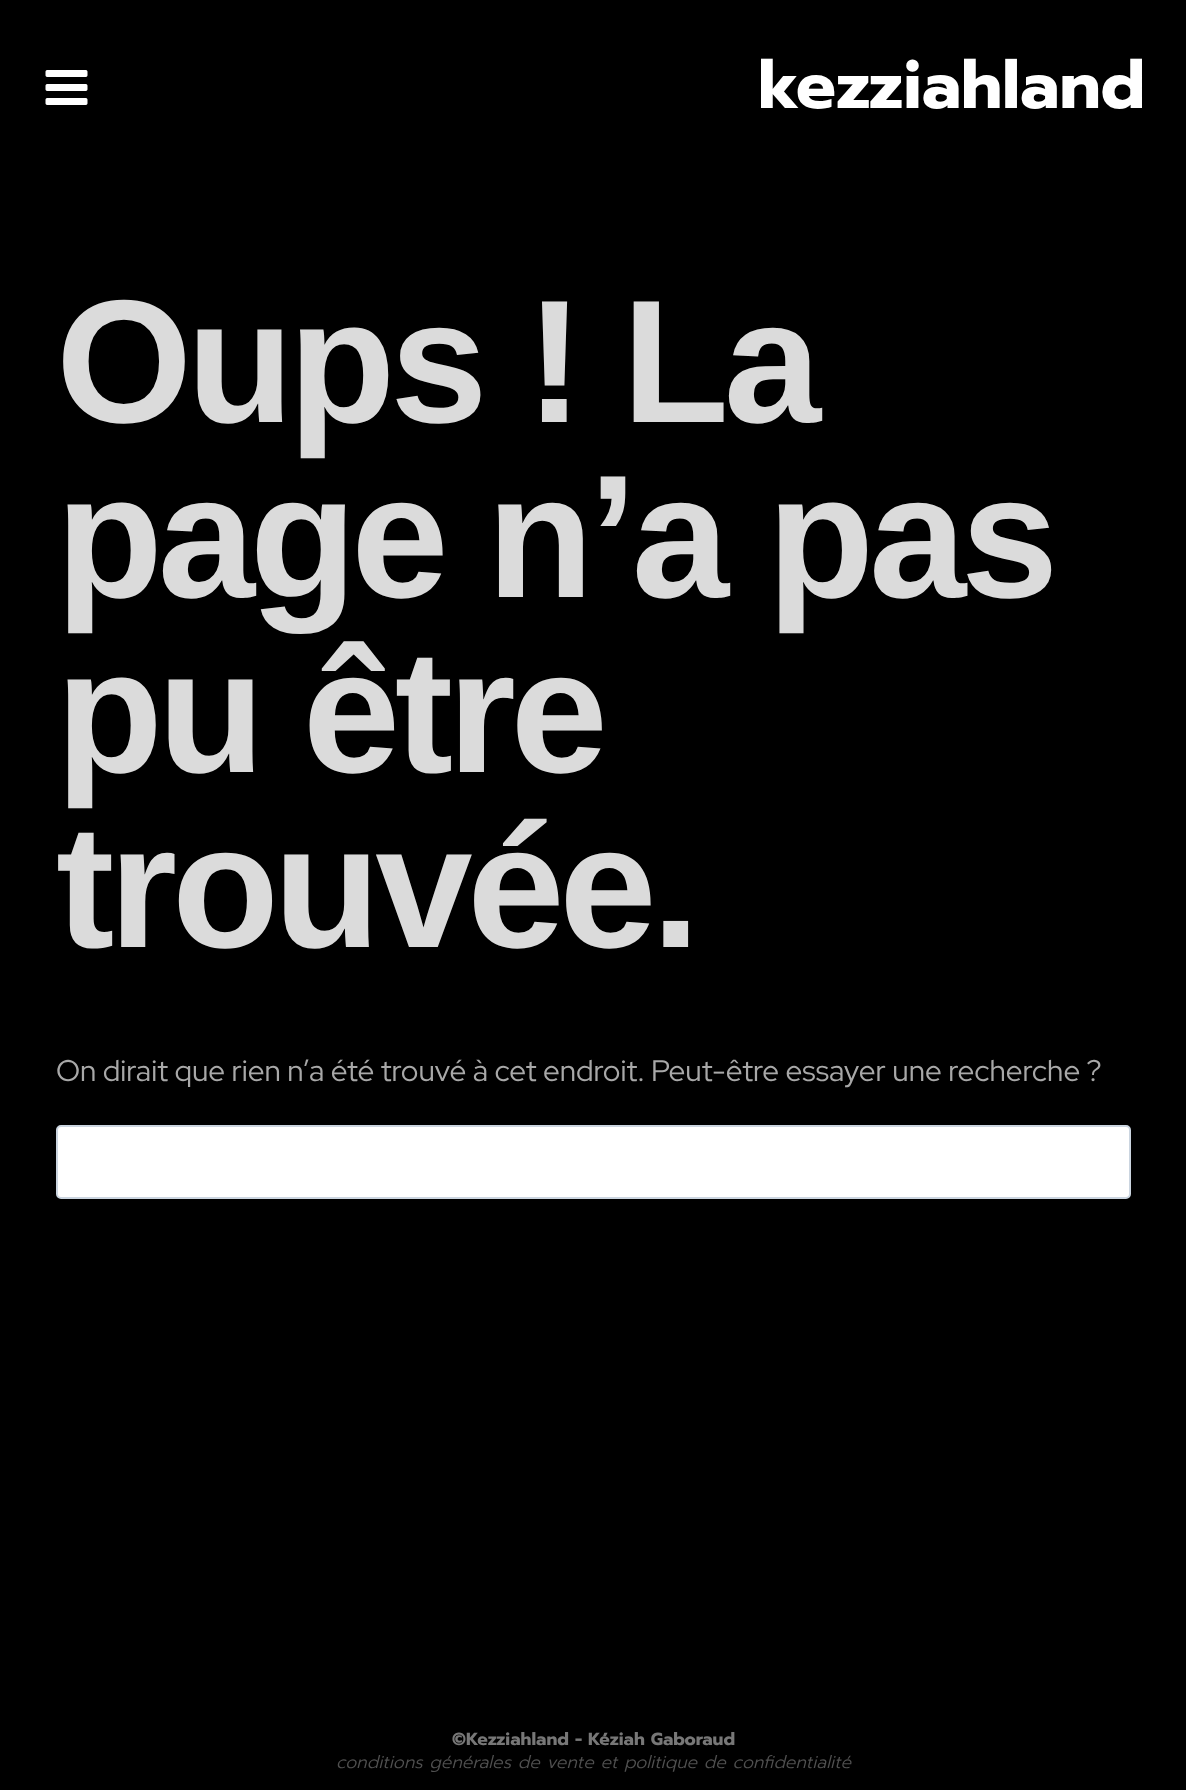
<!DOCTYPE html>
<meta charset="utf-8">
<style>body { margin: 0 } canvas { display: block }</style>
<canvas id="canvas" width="1186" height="1790"></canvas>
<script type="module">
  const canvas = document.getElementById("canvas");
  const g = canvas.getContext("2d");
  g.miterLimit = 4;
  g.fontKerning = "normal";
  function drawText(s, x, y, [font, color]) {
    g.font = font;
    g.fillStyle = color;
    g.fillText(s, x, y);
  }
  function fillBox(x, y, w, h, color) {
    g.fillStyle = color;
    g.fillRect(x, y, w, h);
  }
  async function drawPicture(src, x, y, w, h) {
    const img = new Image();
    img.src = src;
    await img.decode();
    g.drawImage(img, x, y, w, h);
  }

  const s1 = ["bold 66.5px Prompt", "#FFFFFF"];
  const s2 = ["bold 175px Liberation Sans", "#DBDBDB"];
  const s3 = ["29.75px Red Hat Display", "#A8A8A8"];
  const s4 = ["bold 17.5px Prompt", "#777777"];
  const s5 = ["italic 300 17.5px Prompt", "#505050"];

  fillBox(0, 0, 1186, 1790, "#000000");
  await drawPicture("pic1.png", 45, 70, 43, 35);
  drawText("kezziahland", 758, 108, s1);
  g.letterSpacing = "-5.25px";
  drawText("Oups ! La", 56, 422, s2);
  drawText("page n’a pas", 56, 597, s2);
  drawText("pu être", 56, 772, s2);
  drawText("trouvée.", 56, 947, s2);
  g.letterSpacing = "0px";
  drawText("On dirait que rien n’a été trouvé à cet endroit. Peut-être essayer une recherche ?", 56, 1081, s3);
  g.fillStyle = "#FFFFFF";
  g.beginPath();
  g.roundRect(57, 1126, 1073, 72, 4);
  g.fill();
  g.strokeStyle = "#CBD5E0";
  g.lineWidth = 2;
  g.stroke();
  drawText("©Kezziahland - Kéziah Gaboraud", 452, 1745, s4);
  drawText("conditions générales de vente et politique de confidentialité", 336, 1768, s5);
</script>
